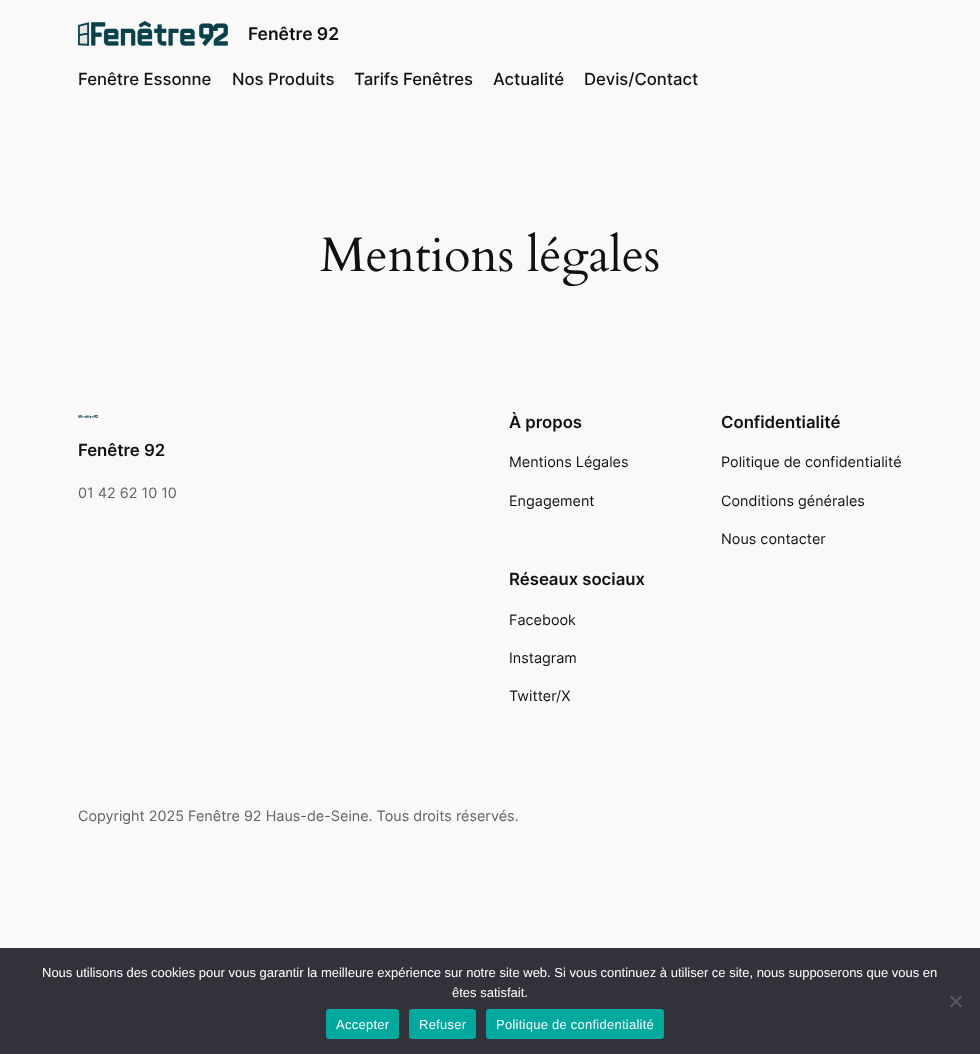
<!DOCTYPE html>
<meta charset="utf-8">
<style>body { margin: 0 } canvas { display: block }</style>
<canvas id="canvas" width="980" height="1054"></canvas>
<script type="module">
  const canvas = document.getElementById("canvas");
  const g = canvas.getContext("2d");
  g.miterLimit = 4;
  g.fontKerning = "normal";
  function drawText(s, x, y, [font, color]) {
    g.font = font;
    g.fillStyle = color;
    g.fillText(s, x, y);
  }
  function fillBox(x, y, w, h, color) {
    g.fillStyle = color;
    g.fillRect(x, y, w, h);
  }
  function fillRounded(x, y, w, h, r, color) {
    g.fillStyle = color;
    g.beginPath();
    g.roundRect(x, y, w, h, r);
    g.fill();
  }
  async function drawPicture(src, x, y, w, h) {
    const img = new Image();
    img.src = src;
    await img.decode();
    g.drawImage(img, x, y, w, h);
  }

  const s1 = ["600 17.5px Inter", "#111111"];
  const s2 = ["500 16.75px Inter", "#111111"];
  const s3 = ["600 16.75px Inter", "#111111"];
  const s4 = ["14.4px Inter", "#636363"];
  const s5 = ["14.4px Inter", "#111111"];
  const s6 = ["13px Liberation Sans", "#FFFFFF"];

  fillBox(0, 0, 980, 1054, "#F9F9F9");
  await drawPicture("pic1.png", 78, 21, 150, 25);
  drawText("Fenêtre 92", 248, 40, s1);
  drawText("Fenêtre Essonne", 78, 85, s2);
  drawText("Nos Produits", 232, 85, s2);
  drawText("Tarifs Fenêtres", 354, 85, s2);
  drawText("Actualité", 493, 85, s2);
  drawText("Devis/Contact", 584, 85, s2);
  await drawPicture("pic2.png", 320, 232, 339, 55);
  await drawPicture("pic3.png", 78, 415, 20, 3);
  drawText("Fenêtre 92", 78, 456, s3);
  drawText("01 42 62 10 10", 78, 498, s4);
  drawText("À propos", 509, 428, s3);
  drawText("Mentions Légales", 509, 467, s5);
  drawText("Engagement", 509, 506, s5);
  drawText("Confidentialité", 721, 428, s3);
  drawText("Politique de confidentialité", 721, 467, s5);
  drawText("Conditions générales", 721, 506, s5);
  drawText("Nous contacter", 721, 544, s5);
  drawText("Réseaux sociaux", 509, 585, s3);
  drawText("Facebook", 509, 625, s5);
  drawText("Instagram", 509, 663, s5);
  drawText("Twitter/X", 509, 701, s5);
  drawText("Copyright 2025 Fenêtre 92 Haus-de-Seine. Tous droits réservés.", 78, 821, s4);
  fillBox(0, 948, 980, 106, "#32323A");
  drawText("Nous utilisons des cookies pour vous garantir la meilleure expérience sur notre site web. Si vous continuez à utiliser ce site, nous supposerons que vous en", 42, 977, s6);
  drawText("êtes satisfait.", 452, 997, s6);
  g.fillStyle = "#59595D";
  g.beginPath();
  g.moveTo(960.5, 995.5);
  g.lineTo(962, 997);
  g.lineTo(951.5, 1007.5);
  g.lineTo(950, 1006);
  g.closePath();
  g.fill();
  g.beginPath();
  g.moveTo(950, 997);
  g.lineTo(951.5, 995.5);
  g.lineTo(962, 1006);
  g.lineTo(960.5, 1007.5);
  g.closePath();
  g.fill();
  fillRounded(326, 1009, 73, 30, 3, "#00A99D");
  g.letterSpacing = "0.25px";
  drawText("Accepter", 336, 1029, s6);
  fillRounded(409, 1009, 67, 30, 3, "#00A99D");
  drawText("Refuser", 419, 1029, s6);
  fillRounded(486, 1009, 178, 30, 3, "#00A99D");
  drawText("Politique de confidentialité", 496, 1029, s6);
</script>
